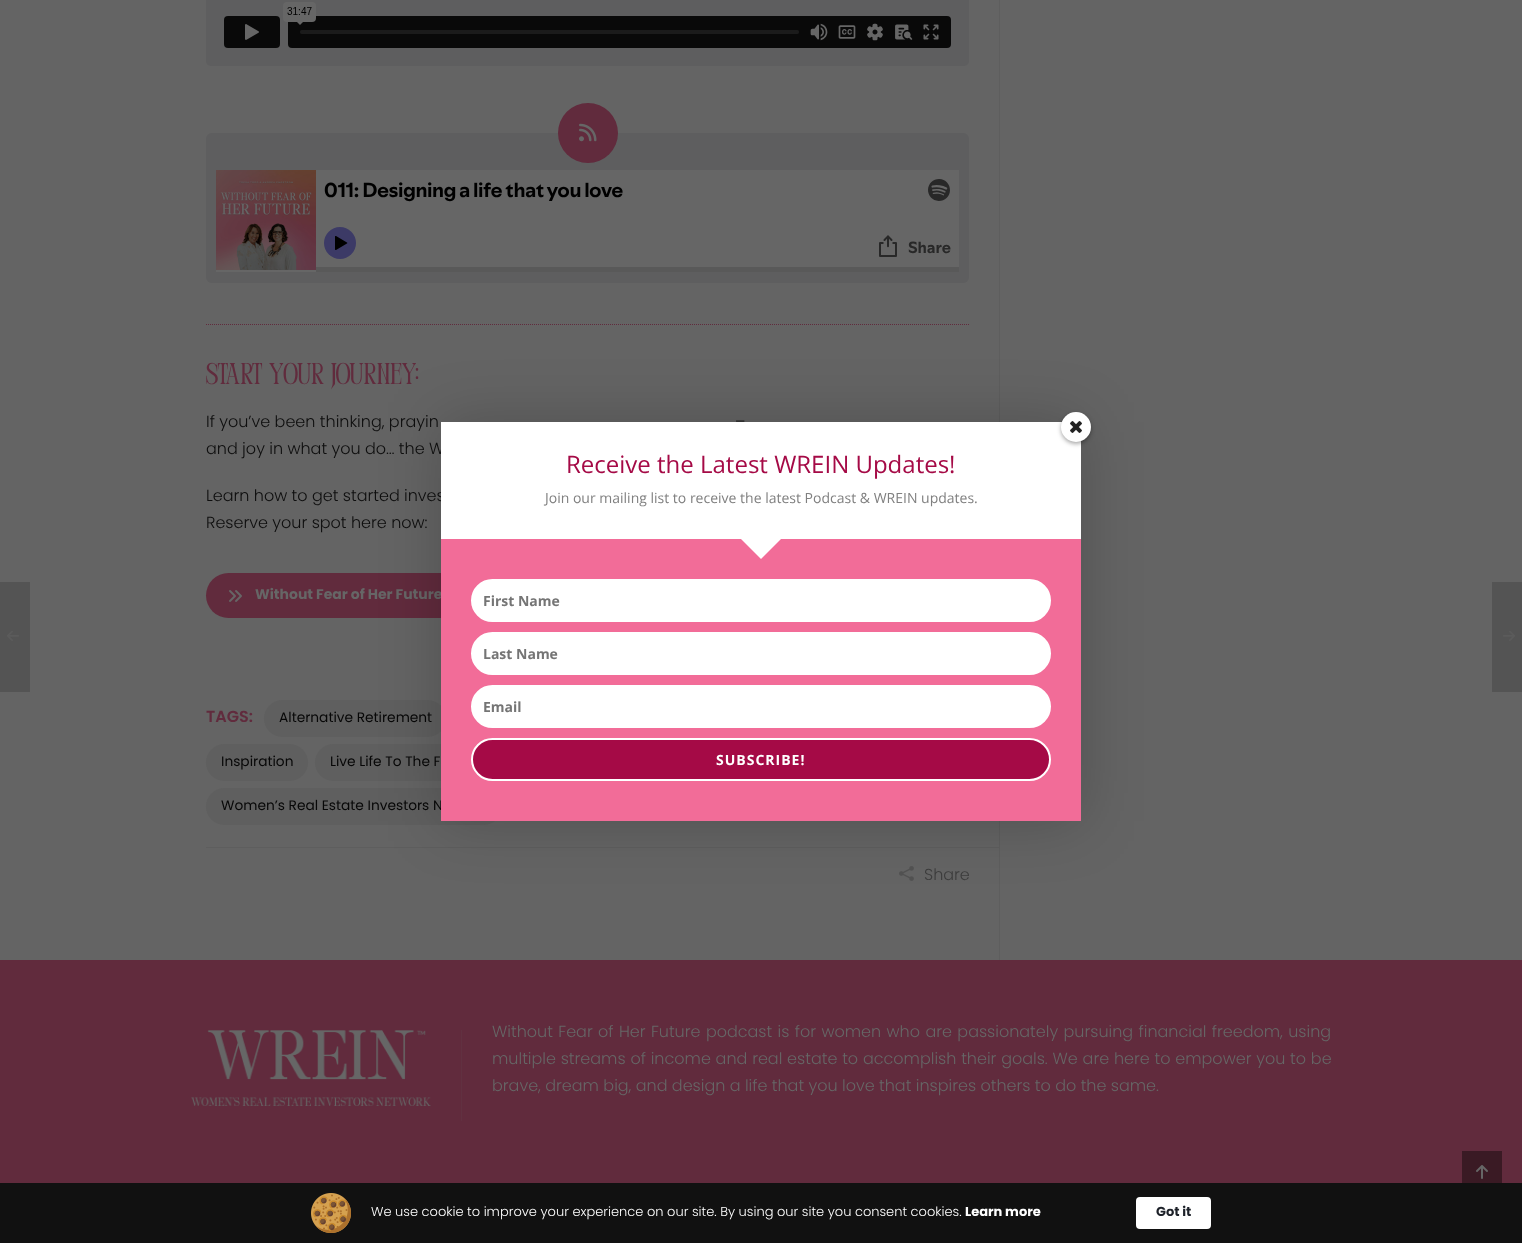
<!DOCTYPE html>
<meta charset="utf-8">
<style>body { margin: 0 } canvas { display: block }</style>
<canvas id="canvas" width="1522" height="1243"></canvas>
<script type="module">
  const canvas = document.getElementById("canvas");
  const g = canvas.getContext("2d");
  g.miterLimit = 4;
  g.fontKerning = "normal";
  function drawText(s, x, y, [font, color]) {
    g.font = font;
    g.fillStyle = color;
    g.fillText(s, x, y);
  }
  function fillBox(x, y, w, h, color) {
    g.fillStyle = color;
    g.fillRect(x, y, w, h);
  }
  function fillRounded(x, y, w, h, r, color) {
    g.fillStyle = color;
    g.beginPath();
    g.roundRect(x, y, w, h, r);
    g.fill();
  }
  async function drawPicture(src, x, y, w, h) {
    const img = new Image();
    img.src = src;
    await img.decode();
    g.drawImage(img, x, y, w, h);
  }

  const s1 = ["30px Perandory", "#612B3D"];
  const s2 = ["300 16px Poppins", "#0E0E0E"];
  const s3 = ["bold 14px Poppins", "#666666"];
  const s4 = ["600 16px Poppins", "#612B3D"];
  const s5 = ["13.75px Poppins", "#070707"];
  const s6 = ["300 16px Poppins", "#3D3D3D"];
  const s7 = ["300 16px Poppins", "#666666"];
  const s8 = ["24px Open Sans", "#A50A46"];
  const s9 = ["14px Open Sans", "#808080"];
  const s10 = ["bold 14px Open Sans", "#757575"];
  const s11 = ["bold 14px Open Sans", "#FFFFFF"];
  const s12 = ["300 13px Poppins", "#FFFFFF"];
  const s13 = ["bold 13px Poppins", "#FFFFFF"];
  const s14 = ["bold 13px Poppins", "#1D2129"];

  fillBox(0, 0, 1522, 1243, "#646464");
  fillBox(999, 0, 1, 960, "#5E5E5E");
  fillRounded(206, -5, 763, 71, 5, "#5E5E5F");
  await drawPicture("pic1.png", 224, 2, 727, 46);
  fillRounded(206, 133, 763, 150, 6, "#5E5E5F");
  g.fillStyle = "#612B3D";
  g.beginPath();
  g.arc(588, 133, 30, 0, Math.PI * 2);
  g.fill();
  await drawPicture("pic2.png", 579, 123, 18, 19);
  await drawPicture("pic3.png", 216, 170, 743, 102);
  g.beginPath();
  g.moveTo(206, 324.5);
  g.lineTo(969, 324.5);
  g.strokeStyle = "#612B3D";
  g.setLineDash([1, 1]);
  g.stroke();
  drawText("Start Your Journey:", 206, 384, s1);
  drawText("If you’ve been thinking, prayin", 206, 427, s2);
  drawText("–", 735, 427, s2);
  drawText("and joy in what you do… the W", 206, 454, s2);
  drawText("Learn how to get started inves", 206, 501, s2);
  drawText("Reserve your spot here now:", 206, 528, s2);
  fillRounded(206, 573, 351, 45, 22.5, "#612B3D");
  await drawPicture("pic4.png", 229, 590, 13, 12);
  drawText("Without Fear of Her Future", 255, 599, s3);
  drawText("TAGS:", 206, 722, s4);
  fillRounded(264, 700, 182, 37, 18.5, "#5F5F5F");
  drawText("Alternative Retirement", 279, 722, s5);
  fillRounded(206, 744, 102, 37, 18.5, "#5F5F5F");
  drawText("Inspiration", 221, 766, s5);
  fillRounded(315, 744, 177, 37, 18.5, "#5F5F5F");
  drawText("Live Life To The F", 330, 766, s5);
  fillRounded(206, 788, 296, 37, 18.5, "#5F5F5F");
  drawText("Women’s Real Estate Investors N", 221, 810, s5);
  fillBox(206, 847, 793, 1, "#5E5E5E");
  await drawPicture("pic5.png", 899, 866, 15, 15);
  drawText("Share", 924, 880, s6);
  fillBox(0, 582, 30, 110, "#545454");
  await drawPicture("pic6.png", 7, 631, 12, 10);
  fillBox(1492, 582, 30, 110, "#545454");
  await drawPicture("pic7.png", 1503, 631, 12, 10);
  fillBox(0, 960, 1522, 223, "#612B3D");
  await drawPicture("pic8.png", 191, 1030, 240, 76);
  fillBox(461, 1030, 1, 91, "#613141");
  g.wordSpacing = "1px";
  drawText("Without Fear of Her Future podcast is for women who are passionately pursuing financial freedom, using", 492, 1037, s7);
  g.wordSpacing = "0.4px";
  drawText("multiple streams of income and real estate to accomplish their goals. We are here to empower you to be", 492, 1064, s7);
  g.wordSpacing = "0px";
  drawText("brave, dream big, and design a life that you love that inspires others to do the same.", 492, 1091, s7);
  fillBox(1462, 1151, 40, 32, "#3A1A24");
  await drawPicture("pic9.png", 1476, 1165, 12, 14);
  g.fillStyle = "rgba(0, 0, 0, 0.2)";
  g.filter = "blur(30px)";
  g.beginPath();
  g.rect(441, 422, 640, 399);
  g.fill();
  g.filter = "none";
  fillBox(441, 422, 640, 117, "#FFFFFF");
  g.fillStyle = "rgba(0, 0, 0, 0.34)";
  g.filter = "blur(2px)";
  g.beginPath();
  g.roundRect(1061, 414, 30, 30, 15);
  g.fill();
  g.filter = "none";
  g.fillStyle = "#FFFFFF";
  g.beginPath();
  g.arc(1076, 427, 15, 0, Math.PI * 2);
  g.fill();
  await drawPicture("pic10.png", 1070, 421, 12, 12);
  drawText("Receive the Latest WREIN Updates!", 566, 473, s8);
  drawText("Join our mailing list to receive the latest Podcast & WREIN updates.", 545, 503, s9);
  fillBox(441, 539, 640, 282, "#F26C98");
  g.fillStyle = "#FFFFFF";
  g.beginPath();
  g.moveTo(741, 539);
  g.lineTo(781, 539);
  g.lineTo(761, 559);
  g.closePath();
  g.fill();
  g.beginPath();
  g.roundRect(472, 580, 578, 41, 20.5);
  g.fill();
  g.strokeStyle = "#FFFFFF";
  g.lineWidth = 2;
  g.setLineDash([]);
  g.stroke();
  drawText("First Name", 483, 606, s10);
  g.fillStyle = "#FFFFFF";
  g.beginPath();
  g.roundRect(472, 633, 578, 41, 20.5);
  g.fill();
  g.stroke();
  drawText("Last Name", 483, 659, s10);
  g.fillStyle = "#FFFFFF";
  g.beginPath();
  g.roundRect(472, 686, 578, 41, 20.5);
  g.fill();
  g.stroke();
  drawText("Email", 483, 712, s10);
  g.fillStyle = "#A50A46";
  g.beginPath();
  g.roundRect(472, 739, 578, 41, 20.5);
  g.fill();
  g.stroke();
  g.letterSpacing = "1px";
  drawText("SUBSCRIBE!", 716, 765, s11);
  fillBox(0, 1183, 1522, 60, "#111111");
  await drawPicture("pic11.png", 311, 1193, 40, 40);
  g.letterSpacing = "0px";
  drawText("We use cookie to improve your experience on our site. By using our site you consent cookies.", 371, 1216, s12);
  drawText("Learn more", 965, 1216, s13);
  fillRounded(1136, 1197, 75, 32, 4, "#FFFFFF");
  drawText("Got it", 1156, 1216, s14);
</script>
